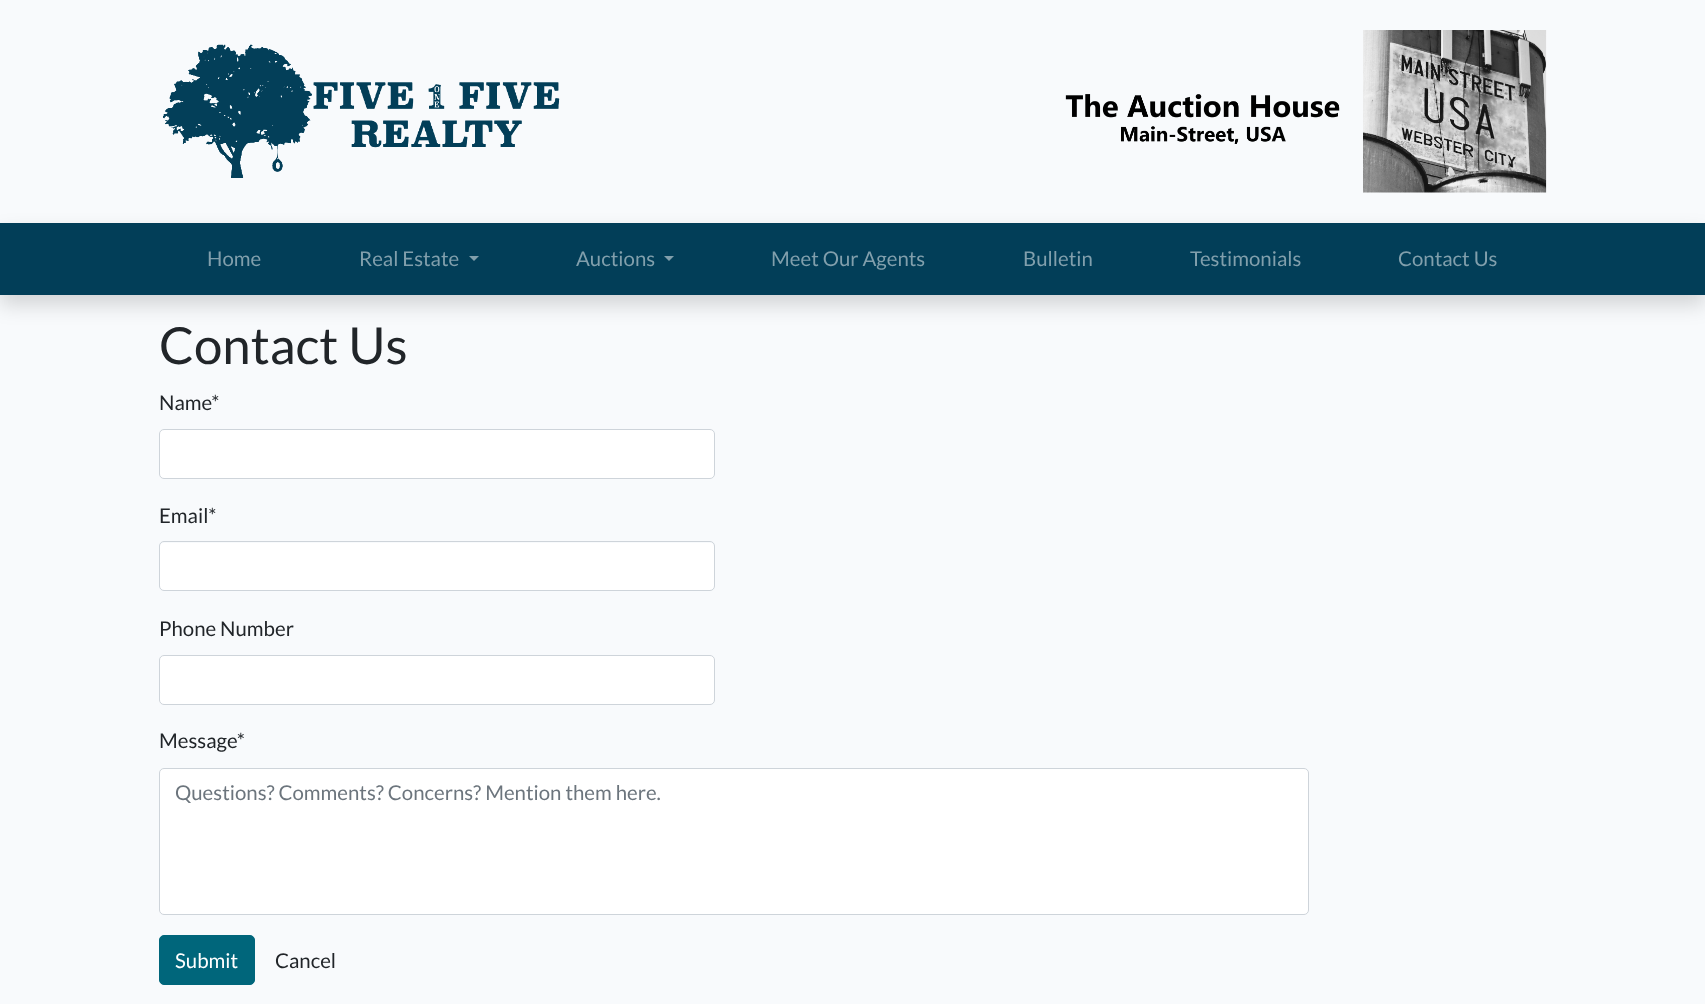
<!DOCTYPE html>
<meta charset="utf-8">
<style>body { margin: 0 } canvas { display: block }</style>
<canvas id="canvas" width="1705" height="1004"></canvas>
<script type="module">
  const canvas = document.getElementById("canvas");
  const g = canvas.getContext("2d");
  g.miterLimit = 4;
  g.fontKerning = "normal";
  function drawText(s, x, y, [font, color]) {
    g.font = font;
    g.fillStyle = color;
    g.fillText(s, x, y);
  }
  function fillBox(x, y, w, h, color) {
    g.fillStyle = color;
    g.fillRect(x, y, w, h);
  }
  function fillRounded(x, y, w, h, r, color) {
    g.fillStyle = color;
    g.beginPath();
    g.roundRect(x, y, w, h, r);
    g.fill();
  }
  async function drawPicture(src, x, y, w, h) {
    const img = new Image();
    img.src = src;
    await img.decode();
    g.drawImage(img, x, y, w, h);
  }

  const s1 = ["20.4px Lato", "#819FAC"];
  const s2 = ["51px Lato", "#212529"];
  const s3 = ["20.4px Lato", "#212529"];
  const s4 = ["20.4px Lato", "#6C757D"];
  const s5 = ["20.4px Lato", "#FFFFFF"];

  fillBox(0, 0, 1705, 1004, "#F8FAFC");
  await drawPicture("pic1.png", 163, 44, 397, 134);
  await drawPicture("pic2.png", 1065, 30, 482, 163);
  g.fillStyle = "rgba(0, 0, 0, 0.15)";
  g.filter = "blur(10px)";
  g.beginPath();
  g.rect(0, 233, 1705, 72);
  g.fill();
  g.filter = "none";
  fillBox(0, 223, 1705, 72, "#023E58");
  drawText("Home", 207, 266, s1);
  drawText("Real Estate", 359, 266, s1);
  g.beginPath();
  g.moveTo(469, 256);
  g.lineTo(479, 256);
  g.lineTo(474, 261);
  g.closePath();
  g.fill();
  drawText("Auctions", 576, 266, s1);
  g.beginPath();
  g.moveTo(664, 256);
  g.lineTo(674, 256);
  g.lineTo(669, 261);
  g.closePath();
  g.fill();
  drawText("Meet Our Agents", 771, 266, s1);
  drawText("Bulletin", 1023, 266, s1);
  drawText("Testimonials", 1190, 266, s1);
  drawText("Contact Us", 1398, 266, s1);
  drawText("Contact Us", 159, 364, s2);
  drawText("Name*", 159, 410, s3);
  g.fillStyle = "#FFFFFF";
  g.beginPath();
  g.roundRect(159.5, 429.5, 555, 49, 4.5);
  g.fill();
  g.strokeStyle = "#CED4DA";
  g.stroke();
  drawText("Email*", 159, 523, s3);
  fillRounded(160, 543, 554, 47, 4, "#FFFFFF");
  g.beginPath();
  g.roundRect(159.5, 541.5, 555, 49, 4.5);
  g.stroke();
  drawText("Phone Number", 159, 636, s3);
  g.fillStyle = "#FFFFFF";
  g.beginPath();
  g.roundRect(159.5, 655.5, 555, 49, 4.5);
  g.fill();
  g.stroke();
  drawText("Message*", 159, 748, s3);
  g.fillStyle = "#FFFFFF";
  g.beginPath();
  g.roundRect(159.5, 768.5, 1149, 146, 4.5);
  g.fill();
  g.stroke();
  drawText("Questions? Comments? Concerns? Mention them here.", 175, 800, s4);
  g.fillStyle = "#00667B";
  g.beginPath();
  g.roundRect(159.5, 935.5, 95, 49, 4.5);
  g.fill();
  g.strokeStyle = "#00667B";
  g.stroke();
  drawText("Submit", 175, 968, s5);
  drawText("Cancel", 275, 968, s3);
</script>
